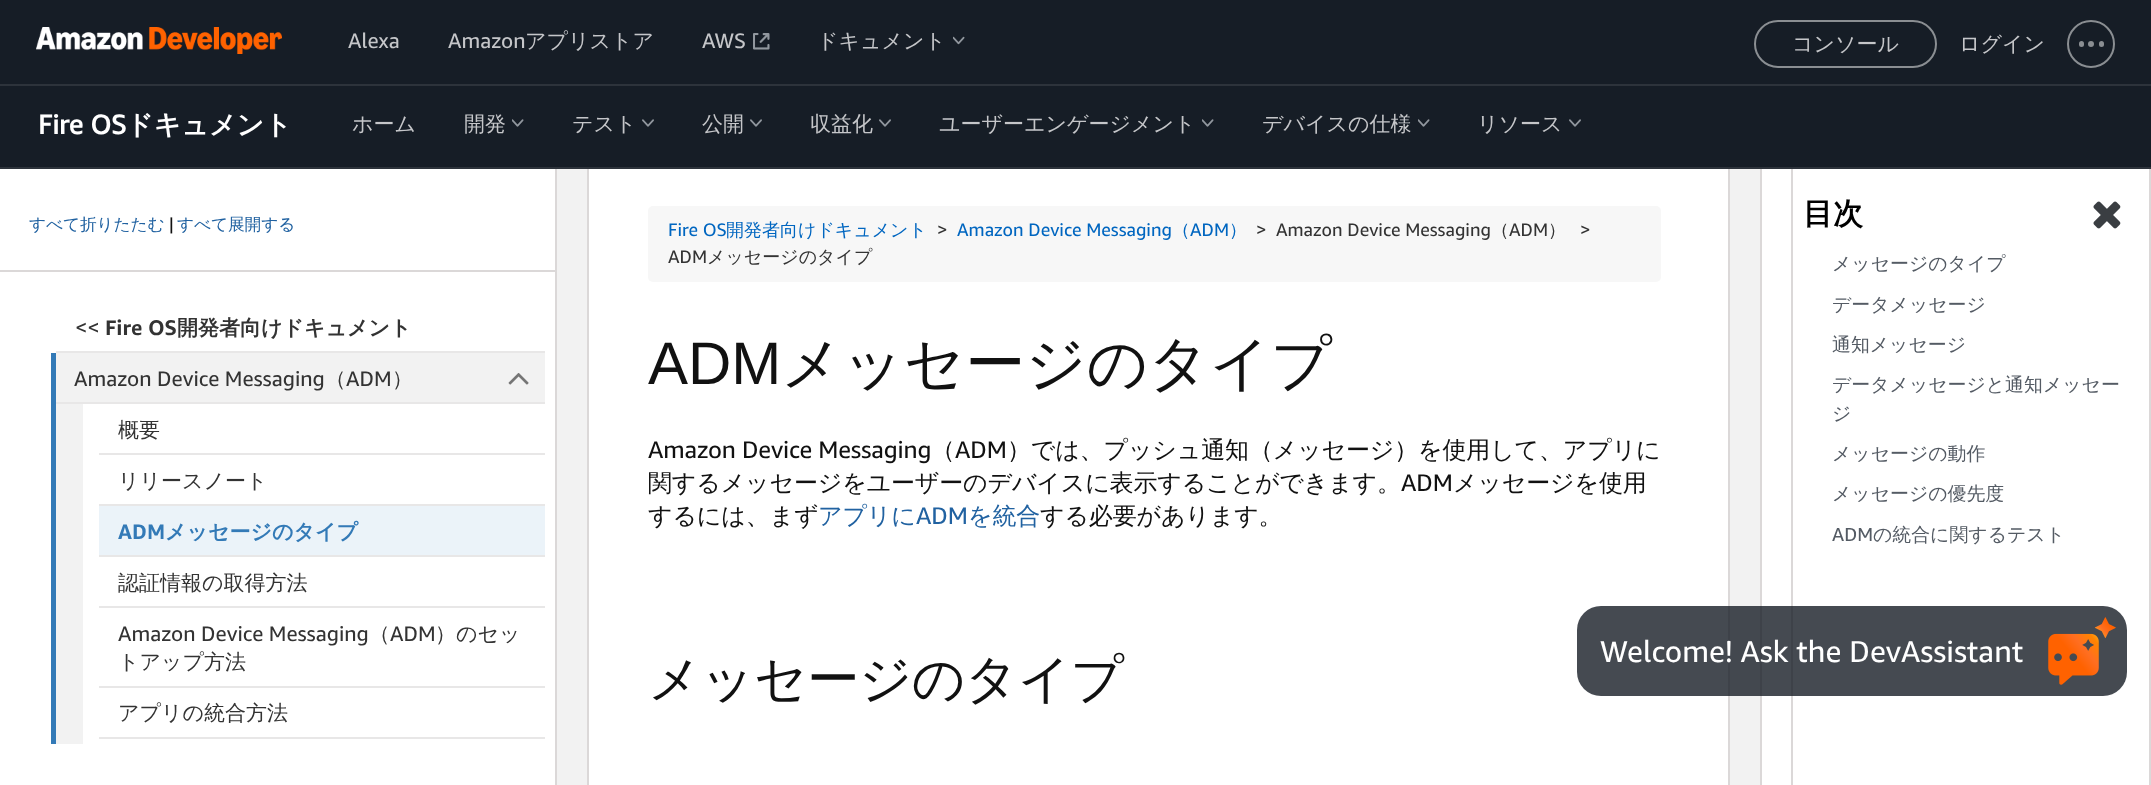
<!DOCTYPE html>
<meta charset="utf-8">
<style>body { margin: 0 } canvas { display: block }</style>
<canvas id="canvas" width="2151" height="785"></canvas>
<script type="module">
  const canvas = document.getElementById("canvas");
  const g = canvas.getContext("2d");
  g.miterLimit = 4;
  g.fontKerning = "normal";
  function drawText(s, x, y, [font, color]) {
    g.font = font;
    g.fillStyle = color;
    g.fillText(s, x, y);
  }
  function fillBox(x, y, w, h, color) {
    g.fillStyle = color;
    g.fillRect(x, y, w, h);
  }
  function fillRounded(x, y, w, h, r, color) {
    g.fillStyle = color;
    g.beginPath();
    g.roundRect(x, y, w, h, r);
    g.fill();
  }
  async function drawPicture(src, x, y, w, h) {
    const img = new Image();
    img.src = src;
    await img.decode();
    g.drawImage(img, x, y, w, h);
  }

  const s1 = ["21px 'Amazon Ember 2'", "#C5C6C9"];
  const s2 = ["500 21px WenQuanYi Zen Hei", "#C5C6C9"];
  const s3 = ["bold 27px 'Amazon Ember 2'", "#FFFFFF"];
  const s4 = ["bold 27px WenQuanYi Zen Hei", "#FFFFFF"];
  const s5 = ["500 16.75px WenQuanYi Zen Hei", "#2162A1"];
  const s6 = ["16.75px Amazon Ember", "#111111"];
  const s7 = ["21px Amazon Ember", "#333333"];
  const s8 = ["bold 21px Amazon Ember", "#333333"];
  const s9 = ["bold 21px WenQuanYi Zen Hei", "#333333"];
  const s10 = ["500 21px WenQuanYi Zen Hei", "#333333"];
  const s11 = ["bold 21px Amazon Ember", "#337AB7"];
  const s12 = ["bold 21px WenQuanYi Zen Hei", "#337AB7"];
  const s13 = ["18px Amazon Ember", "#0066C0"];
  const s14 = ["500 18px WenQuanYi Zen Hei", "#0066C0"];
  const s15 = ["18px Amazon Ember", "#333333"];
  const s16 = ["500 18px WenQuanYi Zen Hei", "#333333"];
  const s17 = ["60px Liberation Sans", "#111111"];
  const s18 = ["500 60px WenQuanYi Zen Hei", "#111111"];
  const s19 = ["24px Amazon Ember", "#111111"];
  const s20 = ["500 24px WenQuanYi Zen Hei", "#111111"];
  const s21 = ["500 24px WenQuanYi Zen Hei", "#2162A1"];
  const s22 = ["24px Amazon Ember", "#2162A1"];
  const s23 = ["500 52.5px WenQuanYi Zen Hei", "#111111"];
  const s24 = ["bold 30px WenQuanYi Zen Hei", "#000000"];
  const s25 = ["500 18.9px WenQuanYi Zen Hei", "#545B64"];
  const s26 = ["18.9px Amazon Ember", "#545B64"];
  const s27 = ["30px 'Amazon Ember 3'", "#FFFFFF"];

  fillBox(0, 0, 2151, 785, "#FFFFFF");
  fillBox(0, 0, 2151, 167, "#161D26");
  fillBox(0, 84, 2151, 2, "#2D333B");
  await drawPicture("pic1.png", 36, 27, 246, 27);
  drawText("Alexa", 348, 48, s1);
  drawText("Amazon", 448, 48, s1);
  drawText("アプリストア", 525, 48, s2);
  drawText("AWS", 702, 48, s1);
  await drawPicture("pic2.png", 753, 33, 17, 17);
  drawText("ドキュメント", 817, 48, s2);
  await drawPicture("pic3.png", 953, 36, 12, 9);
  g.beginPath();
  g.roundRect(1755, 21, 181, 46, 23);
  g.strokeStyle = "#8A8E92";
  g.lineWidth = 2;
  g.stroke();
  drawText("コンソール", 1792, 51, s2);
  drawText("ログイン", 1959, 51, s2);
  g.beginPath();
  g.arc(2091, 44, 23, 0, Math.PI * 2);
  g.stroke();
  fillRounded(2079, 41, 5, 6, 2.5, "#8A8E92");
  g.beginPath();
  g.arc(2091, 44, 3, 0, Math.PI * 2);
  g.fill();
  fillRounded(2099, 41, 5, 6, 2.5, "#8A8E92");
  fillBox(1760, 167, 2, 618, "#DBD8D8");
  fillBox(555, 167, 2, 618, "#DBD8D8");
  fillBox(557, 169, 1203, 616, "#F2F2F2");
  fillBox(1728, 167, 2, 618, "#DBD8D8");
  fillBox(587, 167, 2, 618, "#DBD8D8");
  g.strokeStyle = "#DBD8D8";
  g.strokeRect(1792, 168, 358, 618);
  fillBox(0, 167, 2151, 2, "#2D333B");
  drawText("Fire OS", 38, 134, s3);
  drawText("ドキュメント", 126, 134, s4);
  drawText("ホーム", 352, 131, s2);
  drawText("開発", 464, 131, s2);
  await drawPicture("pic4.png", 512, 119, 12, 8);
  drawText("テスト", 572, 131, s2);
  await drawPicture("pic5.png", 642, 119, 12, 8);
  drawText("公開", 702, 131, s2);
  await drawPicture("pic5.png", 750, 119, 12, 8);
  drawText("収益化", 810, 131, s2);
  await drawPicture("pic5.png", 879, 119, 12, 8);
  drawText("ユーザーエンゲージメント", 939, 131, s2);
  await drawPicture("pic4.png", 1202, 119, 12, 8);
  drawText("デバイスの仕様", 1262, 131, s2);
  await drawPicture("pic4.png", 1418, 119, 12, 8);
  drawText("リソース", 1477, 131, s2);
  await drawPicture("pic5.png", 1569, 119, 12, 8);
  g.letterSpacing = "-0.15px";
  drawText("すべて折りたたむ", 29, 230, s5);
  drawText("|", 169, 230, s6);
  drawText("すべて展開する", 177, 230, s5);
  fillBox(0, 270, 555, 2, "#DBD8D8");
  fillBox(56, 351, 489, 2, "#E8E7E7");
  g.letterSpacing = "0px";
  drawText("<<", 75, 335, s7);
  drawText("Fire OS", 105, 335, s8);
  drawText("開発者向けドキュメント", 177, 335, s9);
  fillBox(56, 353, 489, 391, "#F2F2F2");
  fillBox(51, 353, 5, 391, "#337AB7");
  fillBox(56, 402, 489, 2, "#E8E7E7");
  drawText("Amazon Device Messaging", 74, 386, s7);
  drawText("（", 325, 386, s10);
  drawText("ADM", 346, 386, s7);
  drawText("）", 392, 386, s10);
  await drawPicture("pic6.png", 508, 373, 21, 12);
  fillBox(83, 404, 462, 340, "#FFFFFF");
  fillBox(99, 453, 446, 2, "#E8E7E7");
  drawText("概要", 118, 437, s10);
  fillBox(99, 504, 446, 2, "#E8E7E7");
  drawText("リリースノート", 118, 488, s10);
  fillBox(99, 506, 446, 49, "#EBF3F9");
  fillBox(99, 555, 446, 2, "#E8E7E7");
  drawText("ADM", 118, 539, s11);
  drawText("メッセージのタイプ", 165, 539, s12);
  fillBox(99, 606, 446, 2, "#E8E7E7");
  drawText("認証情報の取得方法", 118, 590, s10);
  fillBox(99, 686, 446, 2, "#E8E7E7");
  drawText("Amazon Device Messaging", 118, 641, s7);
  drawText("（", 369, 641, s10);
  drawText("ADM", 390, 641, s7);
  drawText("）のセッ", 435, 641, s10);
  drawText("トアップ方法", 118, 669, s10);
  fillBox(99, 737, 446, 2, "#E8E7E7");
  drawText("アプリの統合方法", 118, 720, s10);
  fillBox(589, 169, 1139, 616, "#FFFFFF");
  fillRounded(648, 206, 1013, 76, 5, "#F7F7F7");
  drawText("Fire OS", 668, 236, s13);
  drawText("開発者向けドキュメント", 726, 236, s14);
  drawText(">", 937, 236, s15);
  drawText("Amazon Device Messaging", 957, 236, s13);
  drawText("（", 1172, 236, s14);
  drawText("ADM", 1190, 236, s13);
  drawText("）", 1229, 236, s14);
  drawText(">  Amazon Device Messaging", 1256, 236, s15);
  drawText("（", 1491, 236, s16);
  drawText("ADM", 1509, 236, s15);
  drawText("）", 1548, 236, s16);
  drawText(">", 1580, 236, s15);
  drawText("ADM", 668, 263, s15);
  drawText("メッセージのタイプ", 707, 263, s16);
  drawText("ADM", 648, 384, s17);
  drawText("メッセージのタイプ", 781, 384, s18);
  g.letterSpacing = "-0.15px";
  drawText("Amazon Device Messaging", 648, 458, s19);
  drawText("（", 931, 458, s20);
  drawText("ADM", 955, 458, s19);
  drawText("）では、プッシュ通知（メッセージ）を使用して、アプリに", 1007, 458, s20);
  drawText("関するメッセージをユーザーのデバイスに表示することができます。", 648, 491, s20);
  drawText("ADM", 1401, 491, s19);
  drawText("メッセージを使用", 1453, 491, s20);
  drawText("するには、まず", 648, 524, s20);
  drawText("アプリに", 818, 524, s21);
  drawText("ADM", 916, 524, s22);
  drawText("を統合", 968, 524, s21);
  drawText("する必要があります。", 1040, 524, s20);
  g.letterSpacing = "-0.75px";
  drawText("メッセージのタイプ", 648, 697, s23);
  g.letterSpacing = "0px";
  drawText("目次", 1803, 224, s24);
  await drawPicture("pic7.png", 2093, 201, 28, 28);
  drawText("メッセージのタイプ", 1832, 270, s25);
  drawText("データメッセージ", 1832, 311, s25);
  drawText("通知メッセージ", 1832, 351, s25);
  drawText("データメッセージと通知メッセー", 1832, 391, s25);
  drawText("ジ", 1832, 420, s25);
  drawText("メッセージの動作", 1832, 460, s25);
  drawText("メッセージの優先度", 1832, 500, s25);
  drawText("ADM", 1832, 541, s26);
  drawText("の統合に関するテスト", 1873, 541, s25);
  fillRounded(1577, 606, 550, 90, 24, "rgba(22, 29, 38, 0.8)");
  drawText("Welcome! Ask the DevAssistant", 1600, 662, s27);
  await drawPicture("pic8.png", 2048, 617, 68, 68);
</script>
